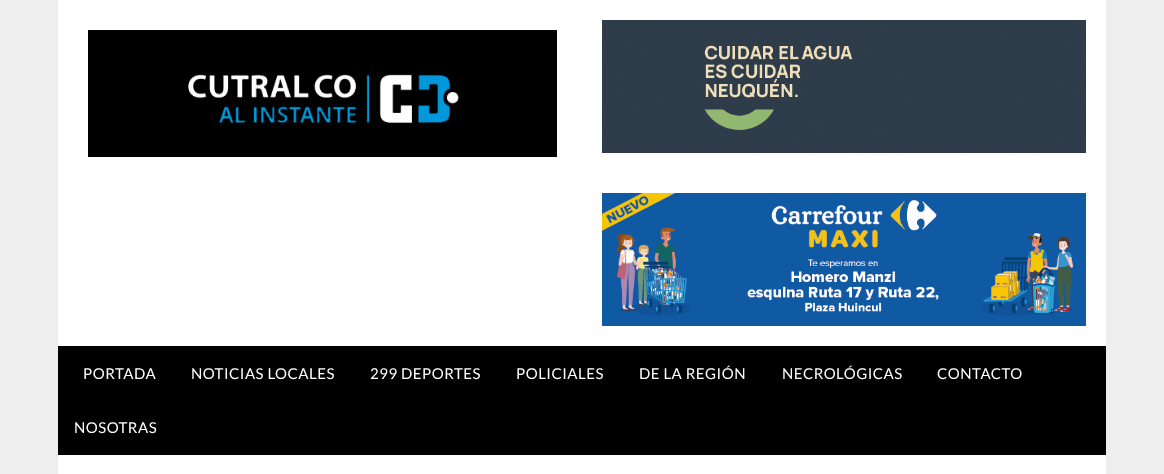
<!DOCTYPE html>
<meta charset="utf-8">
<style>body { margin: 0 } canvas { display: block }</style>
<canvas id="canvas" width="1164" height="474"></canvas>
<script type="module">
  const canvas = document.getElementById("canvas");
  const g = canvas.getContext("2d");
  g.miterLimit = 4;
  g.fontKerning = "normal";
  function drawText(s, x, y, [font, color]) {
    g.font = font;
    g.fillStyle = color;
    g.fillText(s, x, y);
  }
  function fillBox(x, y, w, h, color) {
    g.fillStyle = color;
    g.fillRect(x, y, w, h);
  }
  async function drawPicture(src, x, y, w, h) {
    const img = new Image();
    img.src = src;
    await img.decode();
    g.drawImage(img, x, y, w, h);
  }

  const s1 = ["15px Lato", "#FFFFFF"];

  fillBox(0, 0, 1164, 474, "#EEEEEE");
  fillBox(58, 0, 1048, 346, "#FFFFFF");
  await drawPicture("pic1.png", 88, 30, 469, 127);
  await drawPicture("pic2.png", 602, 20, 484, 133);
  await drawPicture("pic3.png", 602, 193, 484, 133);
  fillBox(58, 346, 1048, 109, "#000000");
  g.letterSpacing = "0.5px";
  drawText("PORTADA", 83, 379, s1);
  drawText("NOTICIAS LOCALES", 191, 379, s1);
  drawText("299 DEPORTES", 370, 379, s1);
  drawText("POLICIALES", 516, 379, s1);
  drawText("DE LA REGIÓN", 639, 379, s1);
  drawText("NECROLÓGICAS", 782, 379, s1);
  drawText("CONTACTO", 937, 379, s1);
  drawText("NOSOTRAS", 74, 433, s1);
  fillBox(58, 455, 1048, 19, "#FFFFFF");
</script>
